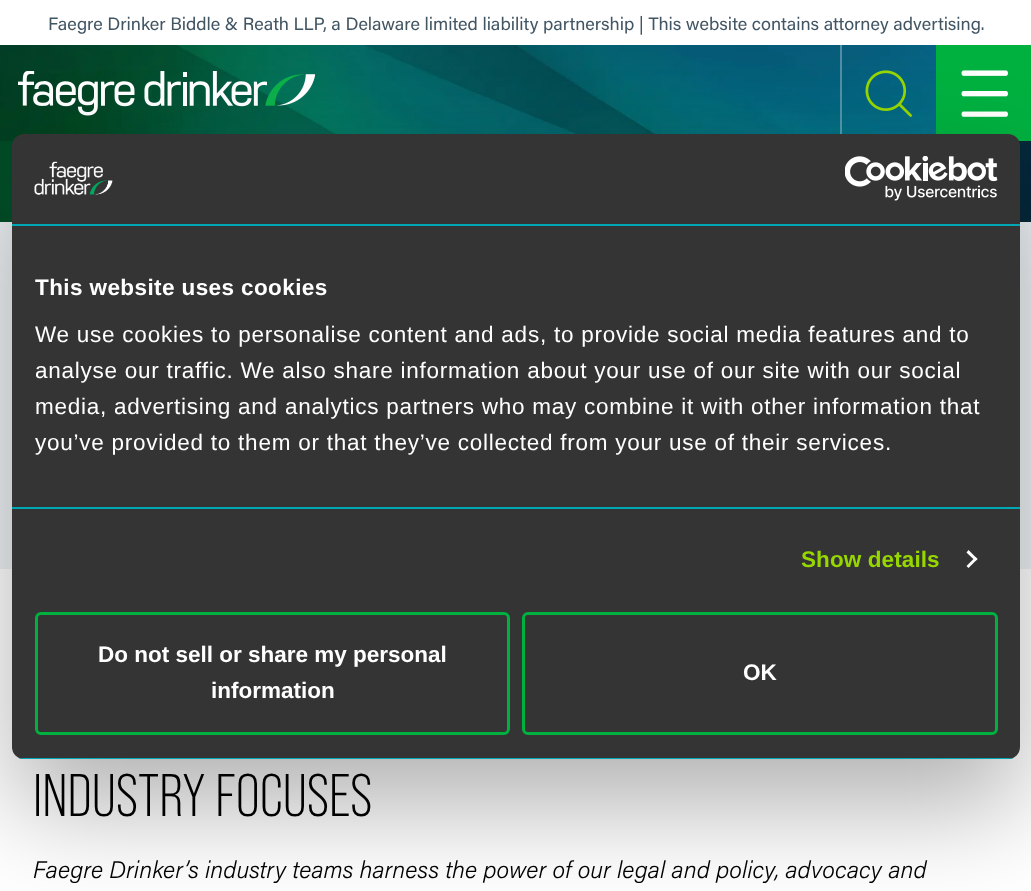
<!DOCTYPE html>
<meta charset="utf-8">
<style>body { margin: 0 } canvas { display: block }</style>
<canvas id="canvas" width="1031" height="891"></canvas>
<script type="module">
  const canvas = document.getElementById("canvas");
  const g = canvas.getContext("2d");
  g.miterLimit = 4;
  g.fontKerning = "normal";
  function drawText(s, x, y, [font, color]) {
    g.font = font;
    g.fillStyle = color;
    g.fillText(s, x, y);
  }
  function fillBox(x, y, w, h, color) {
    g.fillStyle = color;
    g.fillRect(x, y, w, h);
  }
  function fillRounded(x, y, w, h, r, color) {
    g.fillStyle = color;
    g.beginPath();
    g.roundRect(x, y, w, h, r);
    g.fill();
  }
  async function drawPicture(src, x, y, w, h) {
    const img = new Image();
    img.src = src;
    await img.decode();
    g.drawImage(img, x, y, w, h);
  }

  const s1 = ["18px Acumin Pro", "#425563"];
  const s2 = ["60px Bebas Neue", "#000000"];
  const s3 = ["italic 300 24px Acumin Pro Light", "#000000"];
  const s4 = ["bold 22.5px Liberation Sans", "#FFFFFF"];
  const s5 = ["22.5px Liberation Sans", "#FFFFFF"];
  const s6 = ["bold 22.5px Liberation Sans", "#97D700"];

  fillBox(0, 0, 1031, 891, "#FFFFFF");
  drawText("Faegre Drinker Biddle & Reath LLP, a Delaware limited liability partnership | This website contains attorney advertising.", 48, 30, s1);
  await drawPicture("pic1.png", 0, 45, 936, 96);
  await drawPicture("pic2.png", 18, 71, 297, 45);
  fillBox(840, 45, 2, 96, "rgba(255, 255, 255, 0.3)");
  await drawPicture("pic3.png", 865, 70, 47, 47);
  fillBox(936, 45, 95, 96, "#00B140");
  await drawPicture("pic4.png", 961, 70, 47, 47);
  await drawPicture("pic5.png", 0, 141, 1031, 81);
  fillBox(0, 222, 1031, 347, "#EEF2F4");
  drawText("INDUSTRY FOCUSES", 33, 816, s2);
  drawText("Faegre Drinker’s industry teams harness the power of our legal and policy, advocacy and", 33, 878, s3);
  g.fillStyle = "rgba(0, 0, 0, 0.3)";
  g.filter = "blur(51px)";
  g.beginPath();
  g.roundRect(12, 182, 1008, 625, 12);
  g.fill();
  g.filter = "none";
  fillRounded(12, 134, 1008, 625, 12, "#343434");
  fillBox(12, 224, 1008, 2, "#00A7B5");
  await drawPicture("pic6.png", 34, 161, 79, 34);
  await drawPicture("pic7.png", 845, 156, 153, 45);
  fillBox(12, 507, 1008, 2, "#00A7B5");
  g.letterSpacing = "0.4px";
  drawText("This website uses cookies", 35, 295, s4);
  g.letterSpacing = "0.75px";
  drawText("We use cookies to personalise content and ads, to provide social media features and to", 35, 342, s5);
  drawText("analyse our traffic. We also share information about your use of our site with our social", 35, 378, s5);
  drawText("media, advertising and analytics partners who may combine it with other information that", 35, 414, s5);
  drawText("you’ve provided to them or that they’ve collected from your use of their services.", 35, 450, s5);
  g.letterSpacing = "0.1px";
  drawText("Show details", 801, 567, s6);
  g.fillStyle = "#FFFFFF";
  g.beginPath();
  g.moveTo(968.5, 550);
  g.lineTo(977.5, 559);
  g.lineTo(975.5, 561);
  g.lineTo(966.5, 552.5);
  g.closePath();
  g.fill();
  g.beginPath();
  g.moveTo(975.5, 557);
  g.lineTo(977.5, 559);
  g.lineTo(968.5, 568);
  g.lineTo(966.5, 566);
  g.closePath();
  g.fill();
  g.save();
  g.beginPath();
  g.roundRect(12, 134, 1008, 625, 12);
  g.clip();
  fillBox(12, 758, 1008, 1, "#00A7B5");
  g.restore();
  g.beginPath();
  g.roundRect(36.5, 613.5, 472, 120, 4.5);
  g.strokeStyle = "#00B140";
  g.lineWidth = 3;
  g.stroke();
  g.letterSpacing = "0px";
  drawText("Do not sell or share my personal", 98, 662, s4);
  drawText("information", 211, 698, s4);
  g.beginPath();
  g.roundRect(523.5, 613.5, 473, 120, 4.5);
  g.stroke();
  drawText("OK", 743, 680, s4);
</script>
